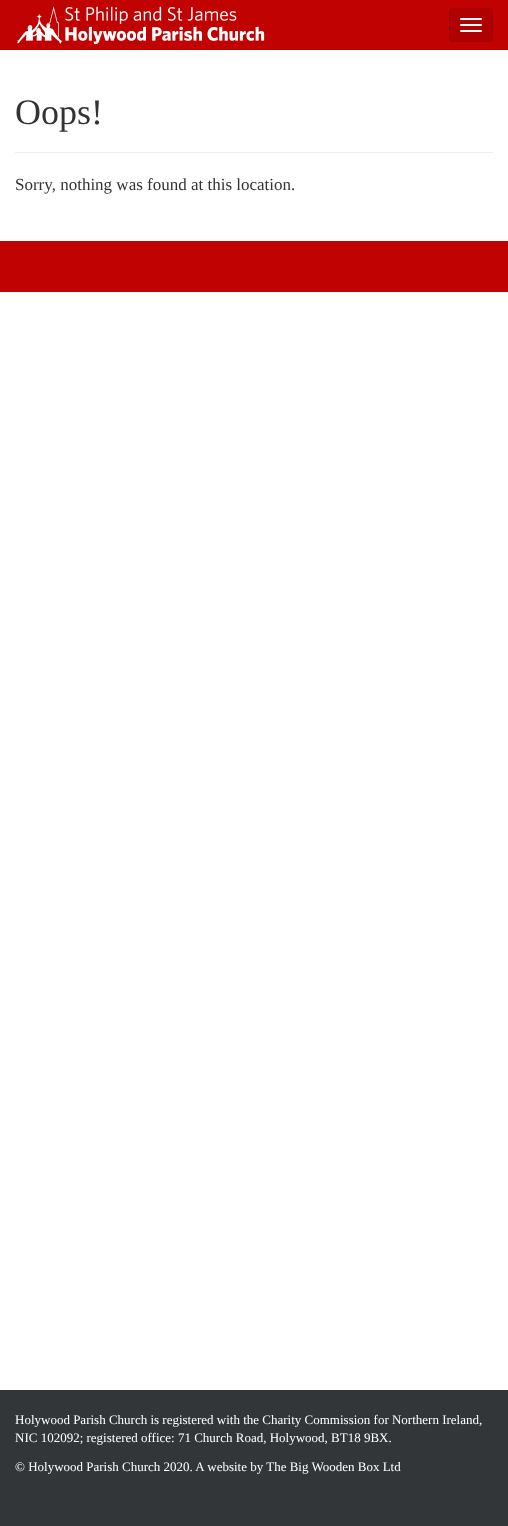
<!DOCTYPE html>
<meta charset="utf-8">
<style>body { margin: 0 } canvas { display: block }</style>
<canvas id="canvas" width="508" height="1526"></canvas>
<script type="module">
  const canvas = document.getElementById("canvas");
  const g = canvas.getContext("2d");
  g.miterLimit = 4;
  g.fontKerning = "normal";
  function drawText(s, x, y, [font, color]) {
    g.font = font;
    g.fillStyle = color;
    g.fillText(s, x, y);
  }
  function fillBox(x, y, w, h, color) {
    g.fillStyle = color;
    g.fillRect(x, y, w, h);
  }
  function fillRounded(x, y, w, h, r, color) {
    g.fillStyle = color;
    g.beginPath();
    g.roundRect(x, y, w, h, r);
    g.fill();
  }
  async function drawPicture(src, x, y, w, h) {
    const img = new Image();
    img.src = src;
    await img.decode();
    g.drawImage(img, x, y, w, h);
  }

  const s1 = ["36px Liberation Serif", "#333333"];
  const s2 = ["17px Liberation Serif", "#333333"];
  const s3 = ["13px Liberation Serif", "#FFFFFF"];

  fillBox(0, 0, 508, 1526, "#FFFFFF");
  fillBox(0, 0, 508, 50, "#C00202");
  await drawPicture("pic1.png", 17, 6, 248, 39);
  g.fillStyle = "#AF0101";
  g.beginPath();
  g.roundRect(449.5, 8.5, 43, 33, 3.5);
  g.fill();
  g.strokeStyle = "#A50101";
  g.stroke();
  fillRounded(460, 18, 22, 2, 1, "#FFFFFF");
  fillRounded(460, 24, 22, 2, 1, "#FFFFFF");
  fillRounded(460, 30, 22, 2, 1, "#FFFFFF");
  fillBox(15, 152, 478, 1, "#EEEEEE");
  drawText("Oops!", 15, 124, s1);
  drawText("Sorry, nothing was found at this location.", 15, 190, s2);
  fillBox(0, 241, 508, 51, "#C00202");
  fillBox(0, 1390, 508, 136, "#333639");
  drawText("Holywood Parish Church is registered with the Charity Commission for Northern Ireland,", 15, 1424, s3);
  drawText("NIC 102092; registered office: 71 Church Road, Holywood, BT18 9BX.", 15, 1442, s3);
  drawText("© Holywood Parish Church 2020. A website by The Big Wooden Box Ltd", 15, 1471, s3);
</script>
